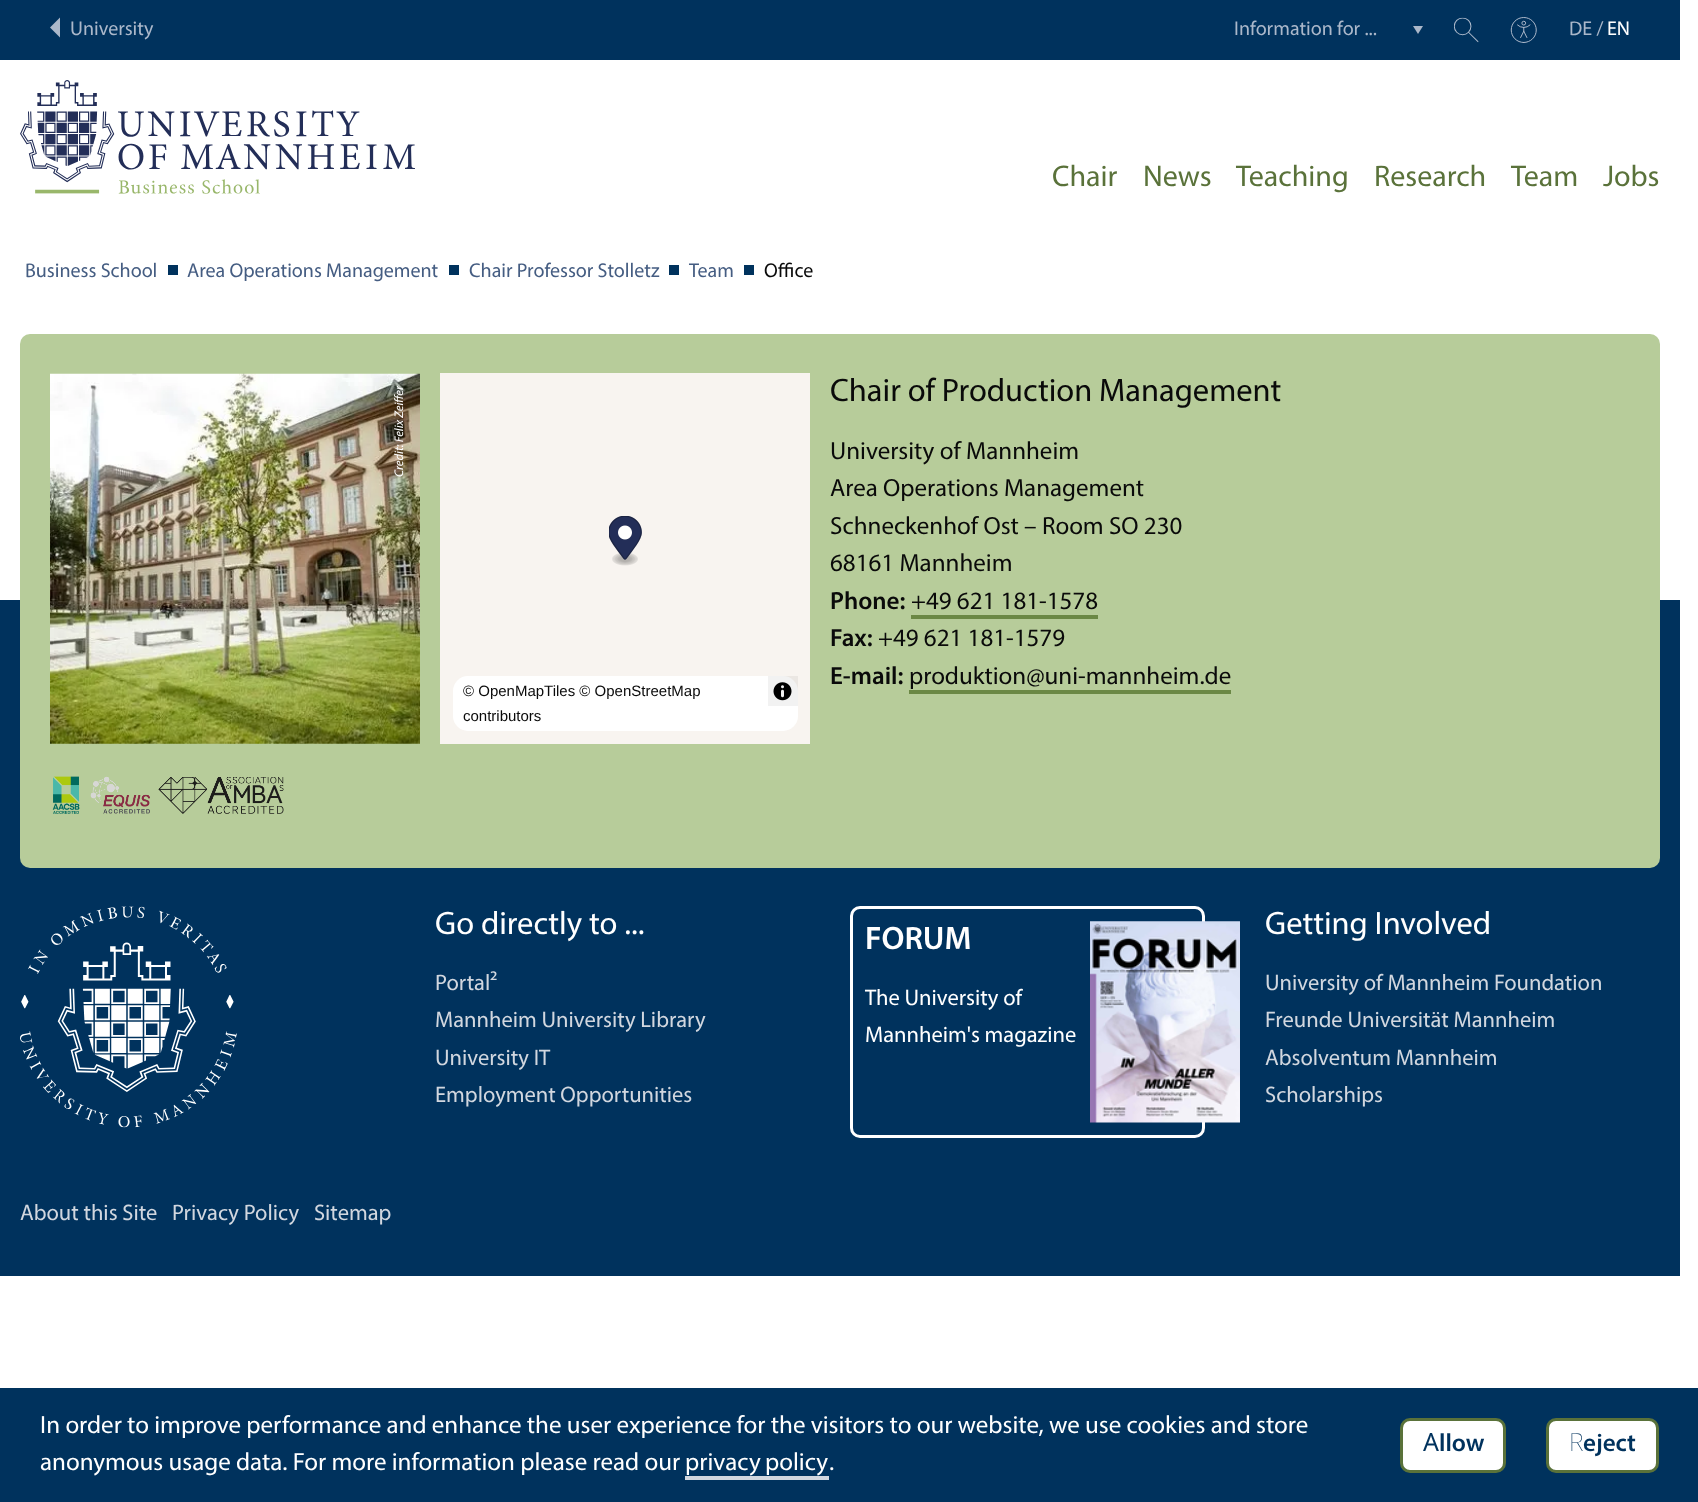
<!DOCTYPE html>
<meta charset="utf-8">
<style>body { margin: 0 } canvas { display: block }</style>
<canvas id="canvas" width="1698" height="1502"></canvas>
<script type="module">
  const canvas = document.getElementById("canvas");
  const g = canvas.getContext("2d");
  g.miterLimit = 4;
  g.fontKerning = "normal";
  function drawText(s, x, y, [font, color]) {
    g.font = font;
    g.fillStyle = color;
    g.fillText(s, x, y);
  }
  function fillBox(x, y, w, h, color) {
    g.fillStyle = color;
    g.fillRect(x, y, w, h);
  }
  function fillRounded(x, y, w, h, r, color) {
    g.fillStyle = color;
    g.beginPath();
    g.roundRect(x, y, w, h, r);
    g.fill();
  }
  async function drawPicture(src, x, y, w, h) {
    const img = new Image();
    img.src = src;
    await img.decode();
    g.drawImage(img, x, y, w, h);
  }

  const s1 = ["20px myriad", "#ABB8CA"];
  const s2 = ["20px myriad", "#FFFFFF"];
  const s3 = ["30px myriad", "#5A723A"];
  const s4 = ["20px myriad", "#455D82"];
  const s5 = ["20px myriad", "#0A0A0A"];
  const s6 = ["32.5px myriad", "#0A0A0A"];
  const s7 = ["25px myriad", "#0A0A0A"];
  const s8 = ["600 25px Myriad", "#0A0A0A"];
  const s9 = ["15px Liberation Sans", "#0A0A0A"];
  const s10 = ["32.5px myriad", "#FFFFFF"];
  const s11 = ["22.5px myriad", "#D1D7DF"];
  const s12 = ["600 32.5px Myriad", "#FFFFFF"];
  const s13 = ["22.5px myriad", "#FFFFFF"];
  const s14 = ["25px myriad", "#FFFFFF"];
  const s15 = ["25px Noto Sans", "#00325D"];
  const s16 = ["600 25px Myriad", "#00325D"];
  const s17 = ["100 25px Noto Sans", "#00325D"];

  fillBox(0, 0, 1698, 1502, "#FFFFFF");
  fillBox(0, 0, 1680, 60, "#00325D");
  g.fillStyle = "#ABB8CA";
  g.beginPath();
  g.moveTo(60, 17.5);
  g.lineTo(60, 37.5);
  g.lineTo(50, 27.5);
  g.closePath();
  g.fill();
  drawText("University", 70, 35, s1);
  g.beginPath();
  g.moveTo(1413, 26);
  g.lineTo(1423, 26);
  g.lineTo(1418, 34);
  g.closePath();
  g.fill();
  drawText("Information for ...", 1234, 35, s1);
  await drawPicture("pic1.png", 1454, 17, 25, 26);
  await drawPicture("pic2.png", 1510, 17, 27, 26);
  drawText("DE /", 1569, 35, s1);
  drawText("EN", 1607, 35, s2);
  await drawPicture("pic3.png", 20, 80, 395, 114);
  drawText("Chair", 1052, 186, s3);
  drawText("News", 1143, 186, s3);
  drawText("Teaching", 1236, 186, s3);
  drawText("Research", 1374, 186, s3);
  drawText("Team", 1511, 186, s3);
  drawText("Jobs", 1603, 186, s3);
  drawText("Business School", 25, 277, s4);
  fillBox(168, 265, 10, 10, "#00325D");
  drawText("Area Operations Management", 187, 277, s4);
  fillBox(449, 265, 10, 10, "#00325D");
  drawText("Chair Professor Stolletz", 469, 277, s4);
  fillBox(669, 265, 10, 10, "#00325D");
  drawText("Team", 689, 277, s4);
  fillBox(744, 265, 10, 10, "#00325D");
  drawText("Office", 764, 277, s5);
  fillBox(0, 600, 1680, 676, "#00325D");
  fillRounded(20, 334, 1640, 534, 10, "#B7CC9A");
  await drawPicture("pic4.png", 50, 373, 370, 371);
  g.font = "italic 12.5px myriad";
  g.fillStyle = "#FFFFFF";
  g.save();
  g.translate(403, 477);
  g.rotate(-90 * Math.PI / 180);
  g.fillText("Credit: Felix Zeiffer", 0, 0);
  g.restore();
  drawText("Chair of Production Management", 830, 401, s6);
  drawText("University of Mannheim", 830, 459, s7);
  drawText("Area Operations Management", 830, 496, s7);
  drawText("Schneckenhof Ost – Room SO 230", 830, 534, s7);
  drawText("68161 Mannheim", 830, 571, s7);
  drawText("Phone:", 830, 609, s8);
  drawText("+49 621 181-1578", 911, 609, s7);
  fillBox(911, 615, 187, 4, "#6B8845");
  drawText("Fax:", 830, 646, s8);
  drawText("+49 621 181-1579", 878, 646, s7);
  drawText("E-mail:", 830, 684, s8);
  drawText("produktion@uni-mannheim.de", 909, 684, s7);
  fillBox(909, 690, 322, 4, "#6B8845");
  fillBox(440, 373, 370, 371, "#F8F4F0");
  await drawPicture("pic5.png", 609, 516, 33, 50);
  fillRounded(453, 676, 345, 55, 15, "#FFFFFF");
  drawText("© OpenMapTiles © OpenStreetMap", 463, 696, s9);
  drawText("contributors", 463, 721, s9);
  fillBox(768, 676, 30, 30, "rgba(0, 0, 0, 0.05)");
  await drawPicture("pic6.png", 773, 682, 19, 19);
  await drawPicture("pic7.png", 52, 776, 232, 38);
  await drawPicture("pic8.png", 20, 906, 217, 222);
  drawText("Go directly to ...", 435, 934, s10);
  drawText("Portal²", 435, 990, s11);
  drawText("Mannheim University Library", 435, 1027, s11);
  drawText("University IT", 435, 1065, s11);
  drawText("Employment Opportunities", 435, 1102, s11);
  g.beginPath();
  g.roundRect(851.5, 907.5, 352, 229, 8.5);
  g.strokeStyle = "#FFFFFF";
  g.lineWidth = 3;
  g.stroke();
  drawText("FORUM", 865, 949, s12);
  drawText("The University of", 865, 1005, s13);
  drawText("Mannheim's magazine", 865, 1042, s13);
  await drawPicture("pic9.png", 1090, 921, 150, 202);
  drawText("Getting Involved", 1265, 934, s10);
  drawText("University of Mannheim Foundation", 1265, 990, s11);
  drawText("Freunde Universität Mannheim", 1265, 1027, s11);
  drawText("Absolventum Mannheim", 1265, 1065, s11);
  drawText("Scholarships", 1265, 1102, s11);
  drawText("About this Site", 20, 1220, s11);
  drawText("Privacy Policy", 172, 1220, s11);
  drawText("Sitemap", 314, 1220, s11);
  fillBox(0, 1388, 1698, 114, "#00325D");
  drawText("In order to improve performance and enhance the user experience for the visitors to our website, we use cookies and store", 40, 1433, s14);
  drawText("anonymous usage data. For more information please read our", 40, 1470, s14);
  g.wordSpacing = "-1px";
  drawText("privacy policy", 685, 1470, s14);
  fillBox(685, 1476, 144, 4, "#D1D7DF");
  g.wordSpacing = "0px";
  drawText(".", 829, 1470, s14);
  g.beginPath();
  g.roundRect(1401.5, 1419.5, 103, 52, 8.5);
  g.fill();
  g.strokeStyle = "#5A723A";
  g.stroke();
  drawText("A", 1423, 1451, s15);
  drawText("llow", 1439, 1451, s16);
  g.fillStyle = "#FFFFFF";
  g.beginPath();
  g.roundRect(1547.5, 1419.5, 110, 52, 8.5);
  g.fill();
  g.stroke();
  drawText("R", 1569, 1451, s17);
  drawText("eject", 1583, 1451, s16);
</script>
